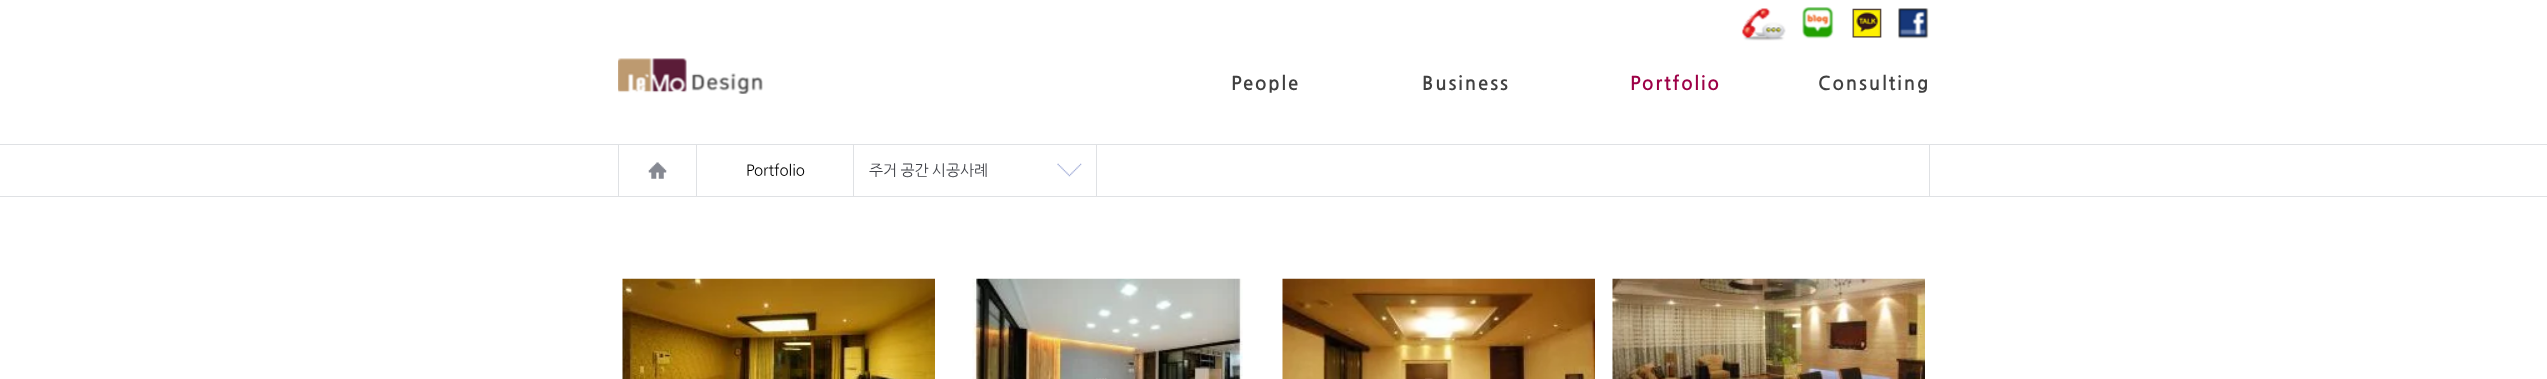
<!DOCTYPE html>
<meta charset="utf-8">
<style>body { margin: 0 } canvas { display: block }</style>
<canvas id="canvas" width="2547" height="379"></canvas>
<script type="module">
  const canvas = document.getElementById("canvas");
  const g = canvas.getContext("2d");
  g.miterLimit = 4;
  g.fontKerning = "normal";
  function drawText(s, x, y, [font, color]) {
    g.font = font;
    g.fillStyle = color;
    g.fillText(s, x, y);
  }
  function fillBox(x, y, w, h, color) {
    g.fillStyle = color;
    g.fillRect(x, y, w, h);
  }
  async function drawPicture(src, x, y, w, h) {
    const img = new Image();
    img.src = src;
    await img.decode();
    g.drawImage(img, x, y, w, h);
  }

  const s1 = ["bold 18.75px NanumGothic", "#404040"];
  const s2 = ["bold 18.75px NanumGothic", "#9D0046"];
  const s3 = ["15px NanumGothic", "#000000"];
  const s4 = ["15px NanumGothic", "#414349"];

  fillBox(0, 0, 2547, 379, "#FFFFFF");
  await drawPicture("pic1.png", 1741, 8, 45, 33);
  await drawPicture("pic2.png", 1802, 7, 32, 32);
  await drawPicture("pic3.png", 1852, 8, 30, 30);
  await drawPicture("pic4.png", 1898, 8, 31, 31);
  await drawPicture("pic5.png", 618, 58, 145, 36);
  g.letterSpacing = "1.9px";
  drawText("People", 1231, 89, s1);
  drawText("Business", 1422, 89, s1);
  drawText("Portfolio", 1630, 89, s2);
  drawText("Consulting", 1818, 89, s1);
  fillBox(0, 144, 2547, 1, "#DFE1E4");
  fillBox(0, 196, 2547, 1, "#DFE1E4");
  fillBox(696, 145, 1, 51, "#DFE1E4");
  fillBox(618, 145, 1, 51, "#DFE1E4");
  await drawPicture("pic6.png", 648, 162, 19, 17);
  fillBox(853, 145, 1, 51, "#DFE1E4");
  g.letterSpacing = "0px";
  drawText("Portfolio", 746, 175, s3);
  g.wordSpacing = "-1px";
  drawText("주거 공간 시공사례", 869, 175, s4);
  fillBox(1096, 145, 1, 51, "#DFE1E4");
  await drawPicture("pic7.png", 1057, 163, 25, 14);
  fillBox(1929, 145, 1, 51, "#DFE1E4");
  await drawPicture("pic8.png", 622, 278, 313, 101);
  await drawPicture("pic9.png", 972, 278, 271, 101);
  await drawPicture("pic10.png", 1282, 278, 313, 101);
  await drawPicture("pic11.png", 1612, 278, 313, 101);
</script>
